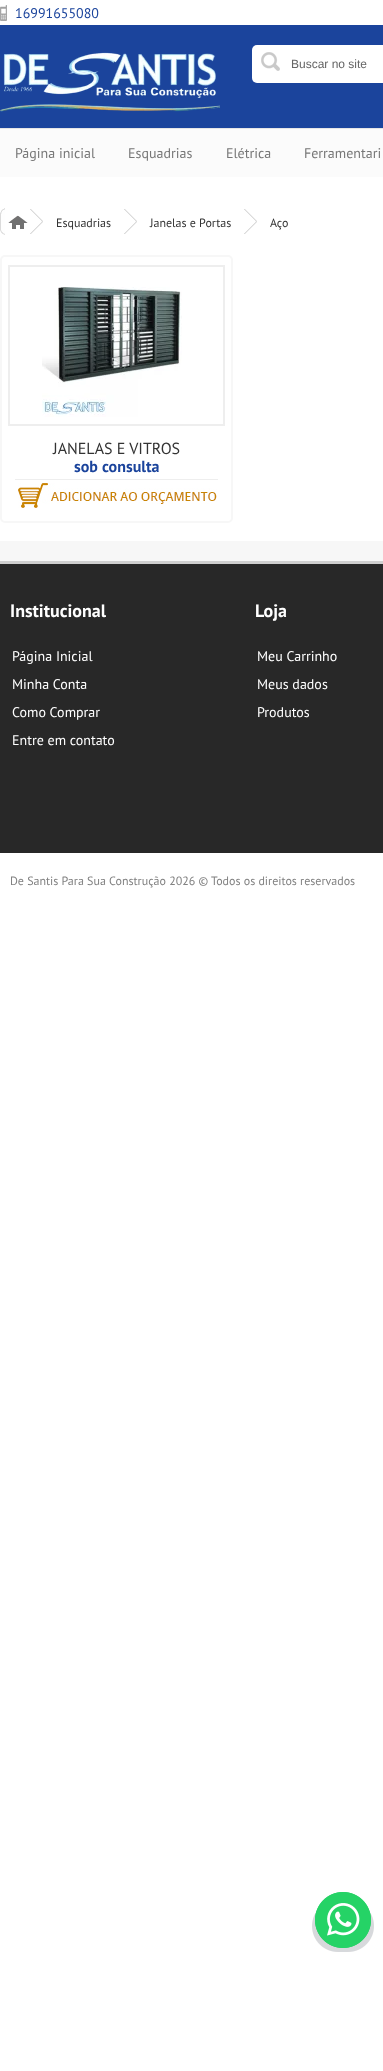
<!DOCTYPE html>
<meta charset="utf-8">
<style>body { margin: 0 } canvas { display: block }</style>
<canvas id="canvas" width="383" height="2071"></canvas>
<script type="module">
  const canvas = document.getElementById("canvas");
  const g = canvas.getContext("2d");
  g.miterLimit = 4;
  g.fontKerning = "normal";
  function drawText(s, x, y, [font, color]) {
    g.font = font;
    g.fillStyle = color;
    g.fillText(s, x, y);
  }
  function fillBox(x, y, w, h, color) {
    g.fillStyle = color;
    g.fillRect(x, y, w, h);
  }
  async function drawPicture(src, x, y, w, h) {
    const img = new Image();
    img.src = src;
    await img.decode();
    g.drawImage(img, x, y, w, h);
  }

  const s1 = ["14px PT Sans", "#1B449C"];
  const s2 = ["12px Liberation Sans", "#666666"];
  const s3 = ["14px PT Sans", "#777777"];
  const s4 = ["12px PT Sans", "#333333"];
  const s5 = ["16px PT Sans", "#333333"];
  const s6 = ["bold 16px PT Sans", "#1B449C"];
  const s7 = ["bold 18px PT Sans", "#FFFFFF"];
  const s8 = ["14px PT Sans", "#FFFFFF"];
  const s9 = ["12px PT Sans", "#818181"];

  fillBox(0, 0, 383, 2071, "#FFFFFF");
  fillBox(0, 25, 383, 103, "#1B449C");
  await drawPicture("pic1.png", 0, 5, 7, 16);
  drawText("16991655080", 15, 18, s1);
  await drawPicture("pic2.png", 0, 52, 220, 60);
  g.fillStyle = "#FFFFFF";
  g.beginPath();
  g.roundRect(252, 45, 131, 38, [5, 0, 0, 5]);
  g.fill();
  await drawPicture("pic3.png", 261, 52, 19, 19);
  drawText("Buscar no site", 291, 68, s2);
  fillBox(0, 129, 383, 48, "#FBFBFB");
  fillBox(0, 128, 383, 1, "#E5E5E5");
  drawText("Página inicial", 15, 158, s3);
  drawText("Esquadrias", 128, 158, s3);
  drawText("Elétrica", 226, 158, s3);
  drawText("Ferramentari", 304, 158, s3);
  await drawPicture("pic4.png", 0, 208, 5, 27);
  await drawPicture("pic5.png", 8, 215, 20, 14);
  await drawPicture("pic6.png", 30, 209, 13, 25);
  drawText("Esquadrias", 56, 227, s4);
  await drawPicture("pic6.png", 124, 209, 13, 25);
  drawText("Janelas e Portas", 150, 227, s4);
  await drawPicture("pic6.png", 244, 209, 13, 25);
  drawText("Aço", 270, 227, s4);
  g.beginPath();
  g.roundRect(1, 256, 231, 266, 4);
  g.strokeStyle = "#F7F7F7";
  g.lineWidth = 2;
  g.stroke();
  g.strokeStyle = "#EEEEEE";
  g.strokeRect(9, 266, 215, 159);
  await drawPicture("pic7.png", 42, 287, 140, 130);
  drawText("JANELAS E VITROS", 53, 454, s5);
  drawText("sob consulta", 74, 472, s6);
  await drawPicture("pic8.png", 18, 483, 199, 25);
  fillBox(15, 479, 203, 1, "#EEEEEE");
  fillBox(0, 541, 383, 20, "#F7F7F7");
  fillBox(0, 564, 383, 289, "#282828");
  fillBox(0, 561, 383, 3, "#CFCFCF");
  drawText("Institucional", 10, 617, s7);
  drawText("Página Inicial", 12, 661, s8);
  drawText("Minha Conta", 12, 689, s8);
  drawText("Como Comprar", 12, 717, s8);
  drawText("Entre em contato", 12, 745, s8);
  drawText("Loja", 255, 617, s7);
  drawText("Meu Carrinho", 257, 661, s8);
  drawText("Meus dados", 257, 689, s8);
  drawText("Produtos", 257, 717, s8);
  drawText("De Santis Para Sua Construção 2026 © Todos os direitos reservados", 10, 885, s9);
  await drawPicture("pic9.png", 312, 1892, 62, 60);
  await drawPicture("pic10.png", 312, 1892, 62, 60);
</script>
